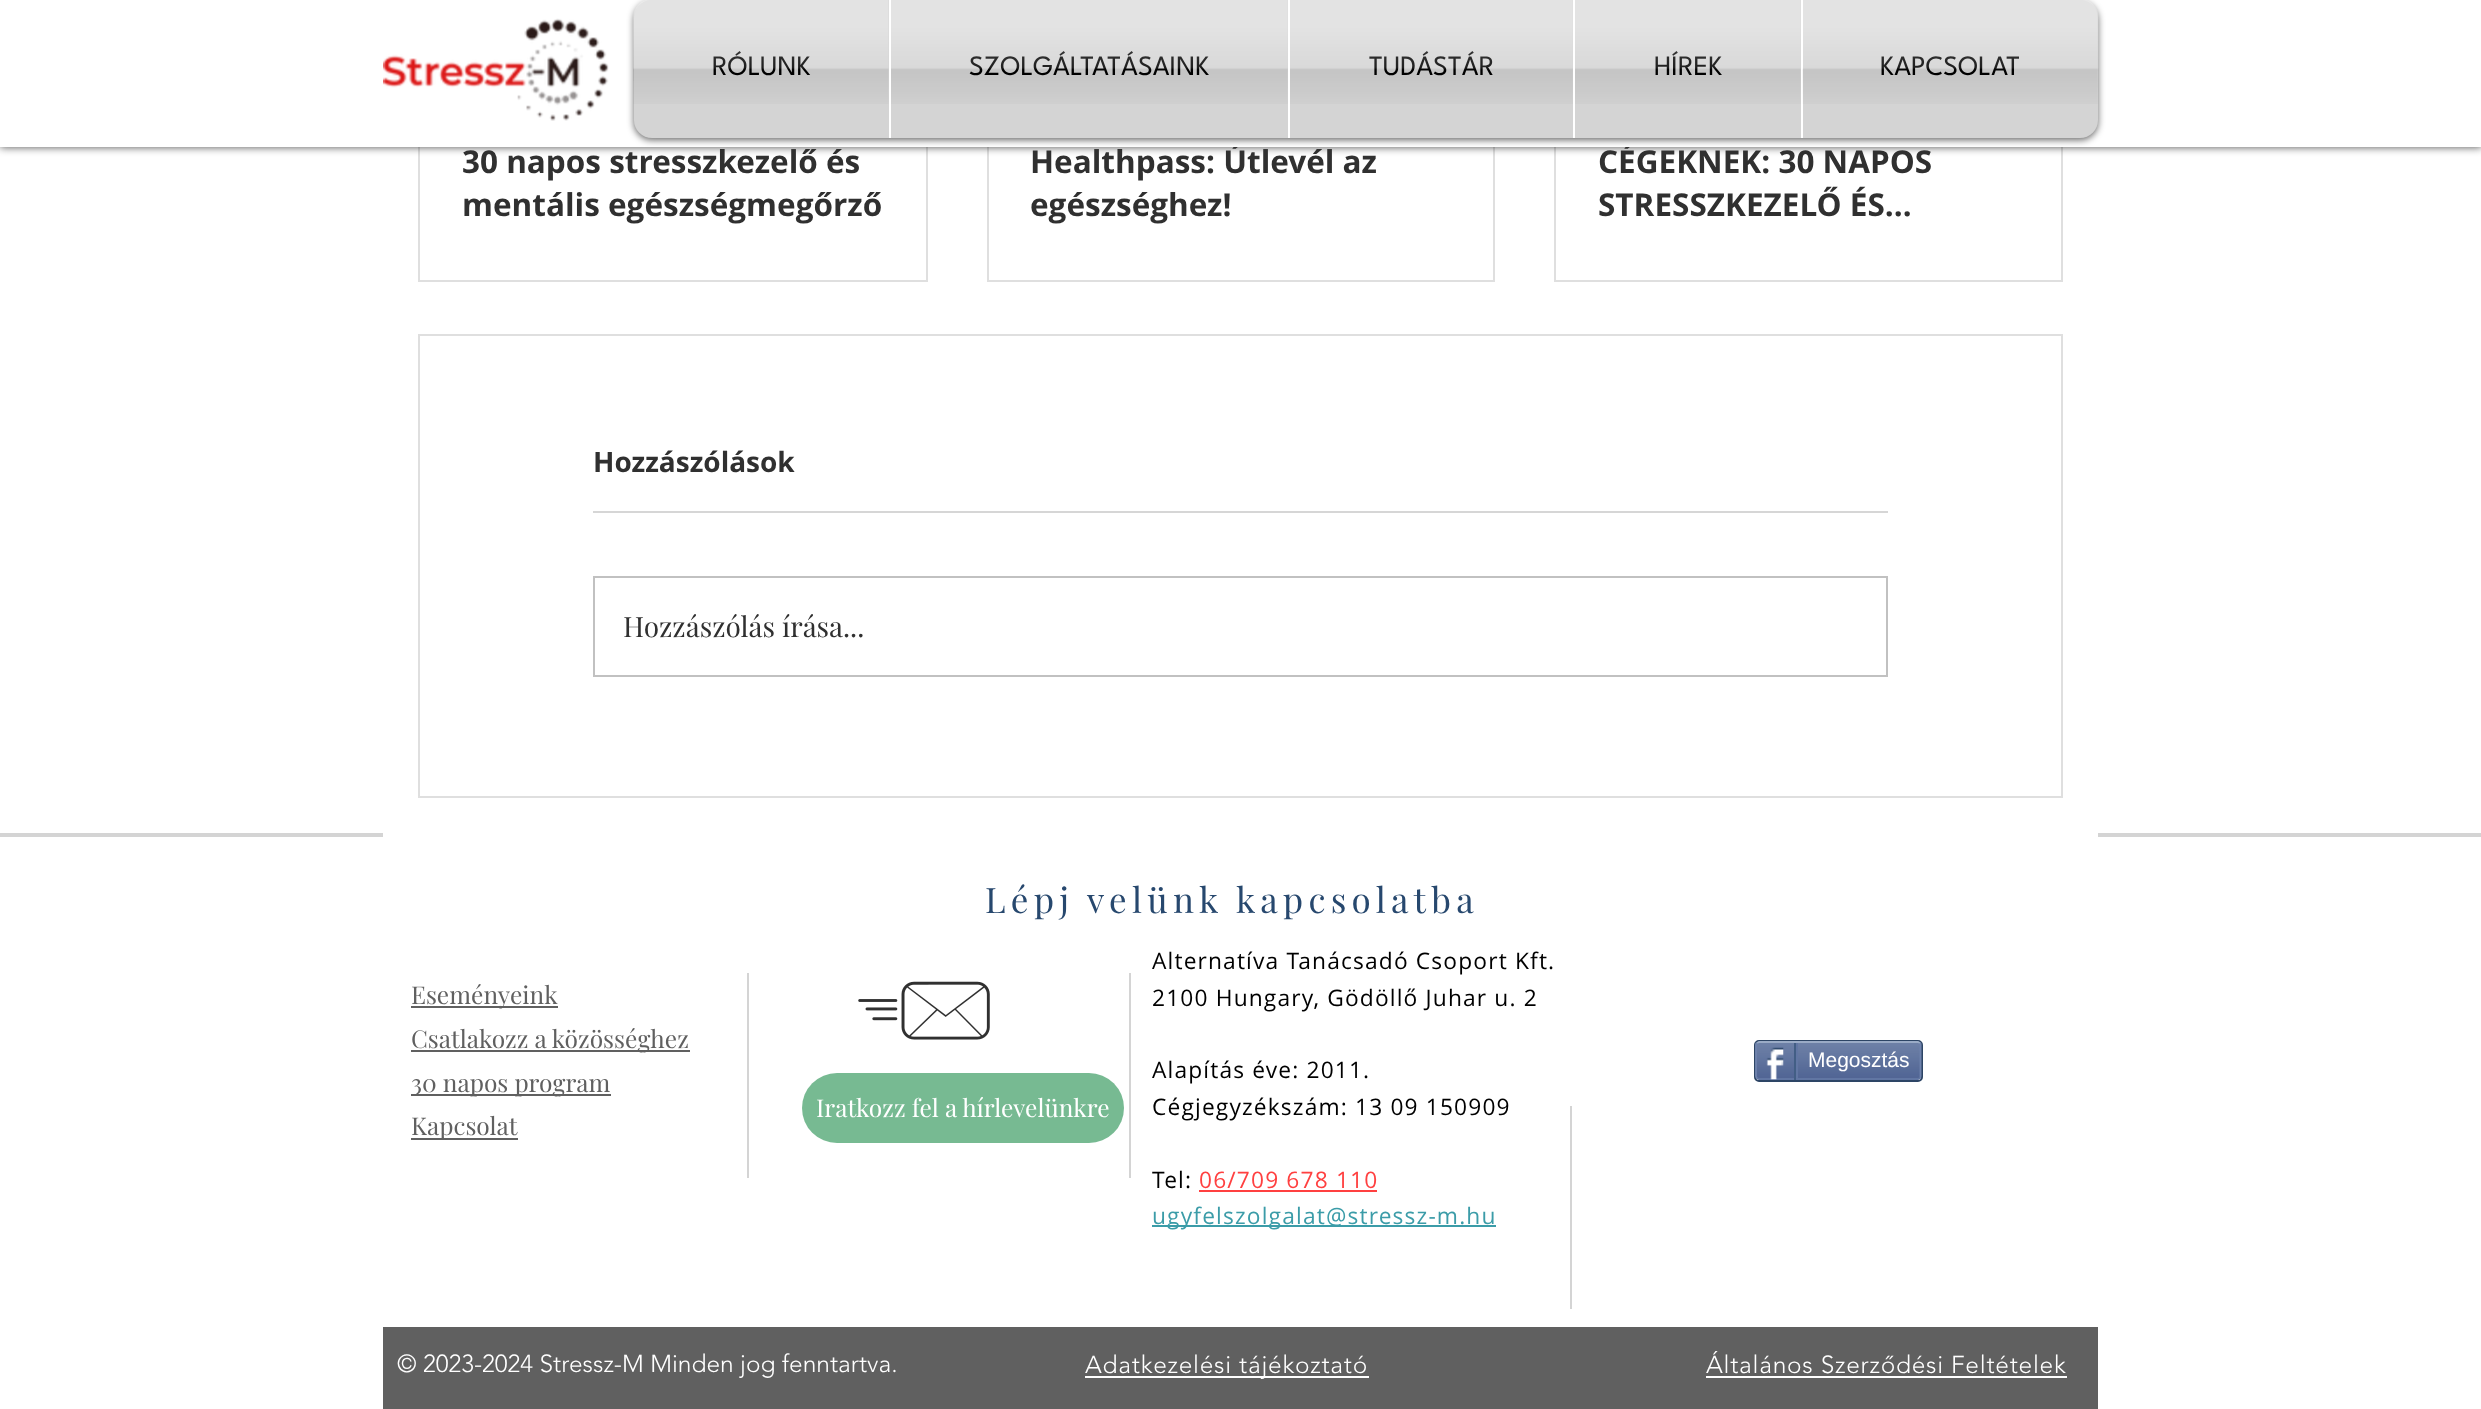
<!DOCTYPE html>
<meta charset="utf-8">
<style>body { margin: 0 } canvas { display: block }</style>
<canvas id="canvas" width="2481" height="1409"></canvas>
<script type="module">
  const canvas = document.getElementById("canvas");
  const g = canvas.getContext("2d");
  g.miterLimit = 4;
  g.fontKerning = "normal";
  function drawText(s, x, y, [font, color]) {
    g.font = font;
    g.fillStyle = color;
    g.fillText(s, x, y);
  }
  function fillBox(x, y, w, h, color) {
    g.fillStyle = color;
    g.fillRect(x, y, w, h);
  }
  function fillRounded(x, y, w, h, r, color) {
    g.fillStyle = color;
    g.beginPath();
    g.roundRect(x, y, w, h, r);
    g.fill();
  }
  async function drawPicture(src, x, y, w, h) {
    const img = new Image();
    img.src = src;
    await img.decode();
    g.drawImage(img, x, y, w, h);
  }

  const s1 = ["bold 31.5px Open Sans", "#303030"];
  const s2 = ["28px League Spartan", "#000000"];
  const s3 = ["bold 28px Open Sans", "#303030"];
  const s4 = ["28px Playfair Display", "#303030"];
  const s5 = ["35px Playfair Display", "#27486E"];
  const s6 = ["24.5px Playfair Display", "#606060"];
  const s7 = ["22.75px Open Sans", "#000000"];
  const s8 = ["22.75px Open Sans", "#FF4040"];
  const s9 = ["22.75px Open Sans", "#3B9CA8"];
  const s10 = ["21px Liberation Sans", "#FFFFFF"];
  const s11 = ["24.5px Playfair Display", "#FFFFFF"];
  const s12 = ["300 24.5px 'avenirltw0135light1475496'", "#FFFFFF"];

  fillBox(0, 0, 2481, 1409, "#FFFFFF");
  g.strokeStyle = "#DFDFDF";
  g.lineWidth = 2;
  g.strokeRect(419, -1, 508, 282);
  g.strokeRect(988, -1, 506, 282);
  g.strokeRect(1555, -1, 507, 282);
  g.fillStyle = "rgba(0, 0, 0, 0.7)";
  g.filter = "blur(4.5px)";
  g.beginPath();
  g.rect(0, 0, 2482, 147);
  g.fill();
  g.filter = "none";
  drawText("Healthpass: Útlevél az", 1030, 173, s1);
  drawText("CÉGEKNEK: 30 NAPOS", 1598, 173, s1);
  fillBox(0, 0, 2481, 147, "#FFFFFF");
  await drawPicture("pic1.png", 383, 18, 226, 103);
  g.fillStyle = "rgba(0, 0, 0, 0.6)";
  g.filter = "blur(3.5px)";
  g.beginPath();
  g.roundRect(634, 2, 1464, 138, 18);
  g.fill();
  g.filter = "none";
  await drawPicture("pic2.png", 633, 0, 1465, 81);
  g.fillStyle = "#D4D4D4";
  g.beginPath();
  g.roundRect(634, 0, 255, 138, [18, 0, 0, 18]);
  g.fill();
  drawText("RÓLUNK", 712, 75, s2);
  await drawPicture("pic3.png", 633, 0, 256, 104);
  fillBox(891, 0, 397, 138, "#D4D4D4");
  fillBox(889, 0, 2, 138, "#FFFFFF");
  drawText("SZOLGÁLTATÁSAINK", 969, 75, s2);
  await drawPicture("pic4.png", 891, 0, 397, 104);
  fillBox(1290, 0, 283, 138, "#D4D4D4");
  fillBox(1288, 0, 2, 138, "#FFFFFF");
  drawText("TUDÁSTÁR", 1369, 75, s2);
  await drawPicture("pic5.png", 1290, 0, 283, 104);
  fillBox(1575, 0, 226, 138, "#D4D4D4");
  fillBox(1573, 0, 2, 138, "#FFFFFF");
  drawText("HÍREK", 1654, 75, s2);
  await drawPicture("pic6.png", 1575, 0, 226, 104);
  g.fillStyle = "#D4D4D4";
  g.beginPath();
  g.roundRect(1801, 0, 297, 138, [0, 18, 18, 0]);
  g.fill();
  fillBox(1801, 0, 2, 138, "#FFFFFF");
  drawText("KAPCSOLAT", 1880, 75, s2);
  await drawPicture("pic7.png", 1802, 0, 297, 104);
  drawText("30 napos stresszkezelő és", 462, 173, s1);
  drawText("mentális egészségmegőrző", 462, 216, s1);
  drawText("egészséghez!", 1030, 216, s1);
  drawText("STRESSZKEZELŐ ÉS…", 1598, 216, s1);
  g.strokeRect(419, 335, 1643, 462);
  drawText("Hozzászólások", 593, 472, s3);
  fillBox(593, 511, 1295, 2, "#D6D6D6");
  g.strokeStyle = "#C1C1C1";
  g.strokeRect(594, 577, 1293, 99);
  drawText("Hozzászólás írása...", 623, 637, s4);
  fillBox(0, 833, 2481, 4, "#D4D4D4");
  g.letterSpacing = "5.25px";
  drawText("Lépj velünk kapcsolatba", 985, 913, s5);
  fillBox(383, 833, 1715, 4, "#FFFFFF");
  fillBox(411, 1006, 147, 2, "#606060");
  g.letterSpacing = "0px";
  drawText("Eseményeink", 411, 1004, s6);
  fillBox(411, 1050, 279, 2, "#606060");
  drawText("Csatlakozz a közösséghez", 411, 1048, s6);
  fillBox(411, 1094, 200, 2, "#606060");
  drawText("30 napos program", 411, 1092, s6);
  fillBox(411, 1138, 107, 2, "#606060");
  drawText("Kapcsolat", 411, 1135, s6);
  fillBox(747, 973, 2, 205, "#D4D4D4");
  g.letterSpacing = "1.15px";
  drawText("Alternatíva Tanácsadó Csoport Kft.", 1152, 969, s7);
  drawText("2100 Hungary, Gödöllő Juhar u. 2", 1152, 1006, s7);
  drawText("Alapítás éve: 2011.", 1152, 1078, s7);
  drawText("Cégjegyzékszám: 13 09 150909", 1152, 1115, s7);
  drawText("Tel:", 1152, 1188, s7);
  drawText("06/709 678 110", 1199, 1188, s8);
  fillBox(1199, 1190, 178, 2, "#FF4040");
  fillBox(1152, 1225, 344, 2, "#3B9CA8");
  drawText("ugyfelszolgalat@stressz-m.hu", 1152, 1224, s9);
  g.beginPath();
  g.roundRect(1755, 1041, 167, 40, 4);
  g.strokeStyle = "#2D4565";
  g.stroke();
  await drawPicture("pic8.png", 1755, 1042, 167, 38);
  g.beginPath();
  g.moveTo(1757, 1043);
  g.lineTo(1759, 1042);
  g.lineTo(1918, 1042);
  g.lineTo(1920, 1043);
  g.strokeStyle = "#9AABC6";
  g.lineWidth = 1.8;
  g.stroke();
  g.beginPath();
  g.moveTo(1920, 1043);
  g.bezierCurveTo(1920.5, 1043.5, 1920.5, 1044, 1920.5, 1045);
  g.lineTo(1920.5, 1076);
  g.bezierCurveTo(1920.5, 1077, 1920.5, 1077.5, 1920, 1078);
  g.strokeStyle = "#6F83AD";
  g.stroke();
  g.beginPath();
  g.moveTo(1920, 1078);
  g.lineTo(1918, 1079);
  g.lineTo(1759, 1079);
  g.lineTo(1757, 1078);
  g.strokeStyle = "#6176A3";
  g.stroke();
  g.beginPath();
  g.moveTo(1757, 1078);
  g.bezierCurveTo(1756.5, 1077.5, 1756, 1077, 1756, 1076);
  g.lineTo(1756, 1045);
  g.bezierCurveTo(1756, 1044, 1756.5, 1043.5, 1757, 1043);
  g.strokeStyle = "#6F83AD";
  g.stroke();
  await drawPicture("pic9.png", 1766, 1047, 18, 33);
  fillBox(1794, 1043, 2, 37, "#425E85");
  g.letterSpacing = "0px";
  drawText("Megosztás", 1808, 1067, s10);
  fillBox(1796, 1043, 2, 35, "#6176A3");
  await drawPicture("pic10.png", 858, 981, 132, 59);
  fillBox(1129, 973, 2, 205, "#D4D4D4");
  fillRounded(802, 1073, 322, 70, 35, "#77BA92");
  drawText("Iratkozz fel a hírlevelünkre", 816, 1117, s11);
  fillBox(1570, 1106, 2, 203, "#D4D4D4");
  fillBox(383, 1327, 1715, 82, "#606060");
  drawText("© 2023-2024 Stressz-M Minden jog fenntartva.", 397, 1372, s12);
  fillBox(1085, 1376, 284, 2, "#FFFFFF");
  g.letterSpacing = "0.75px";
  drawText("Adatkezelési tájékoztató", 1085, 1373, s12);
  drawText("Általános Szerződési Feltételek", 1706, 1373, s12);
  fillBox(1706, 1376, 361, 2, "#FFFFFF");
</script>
